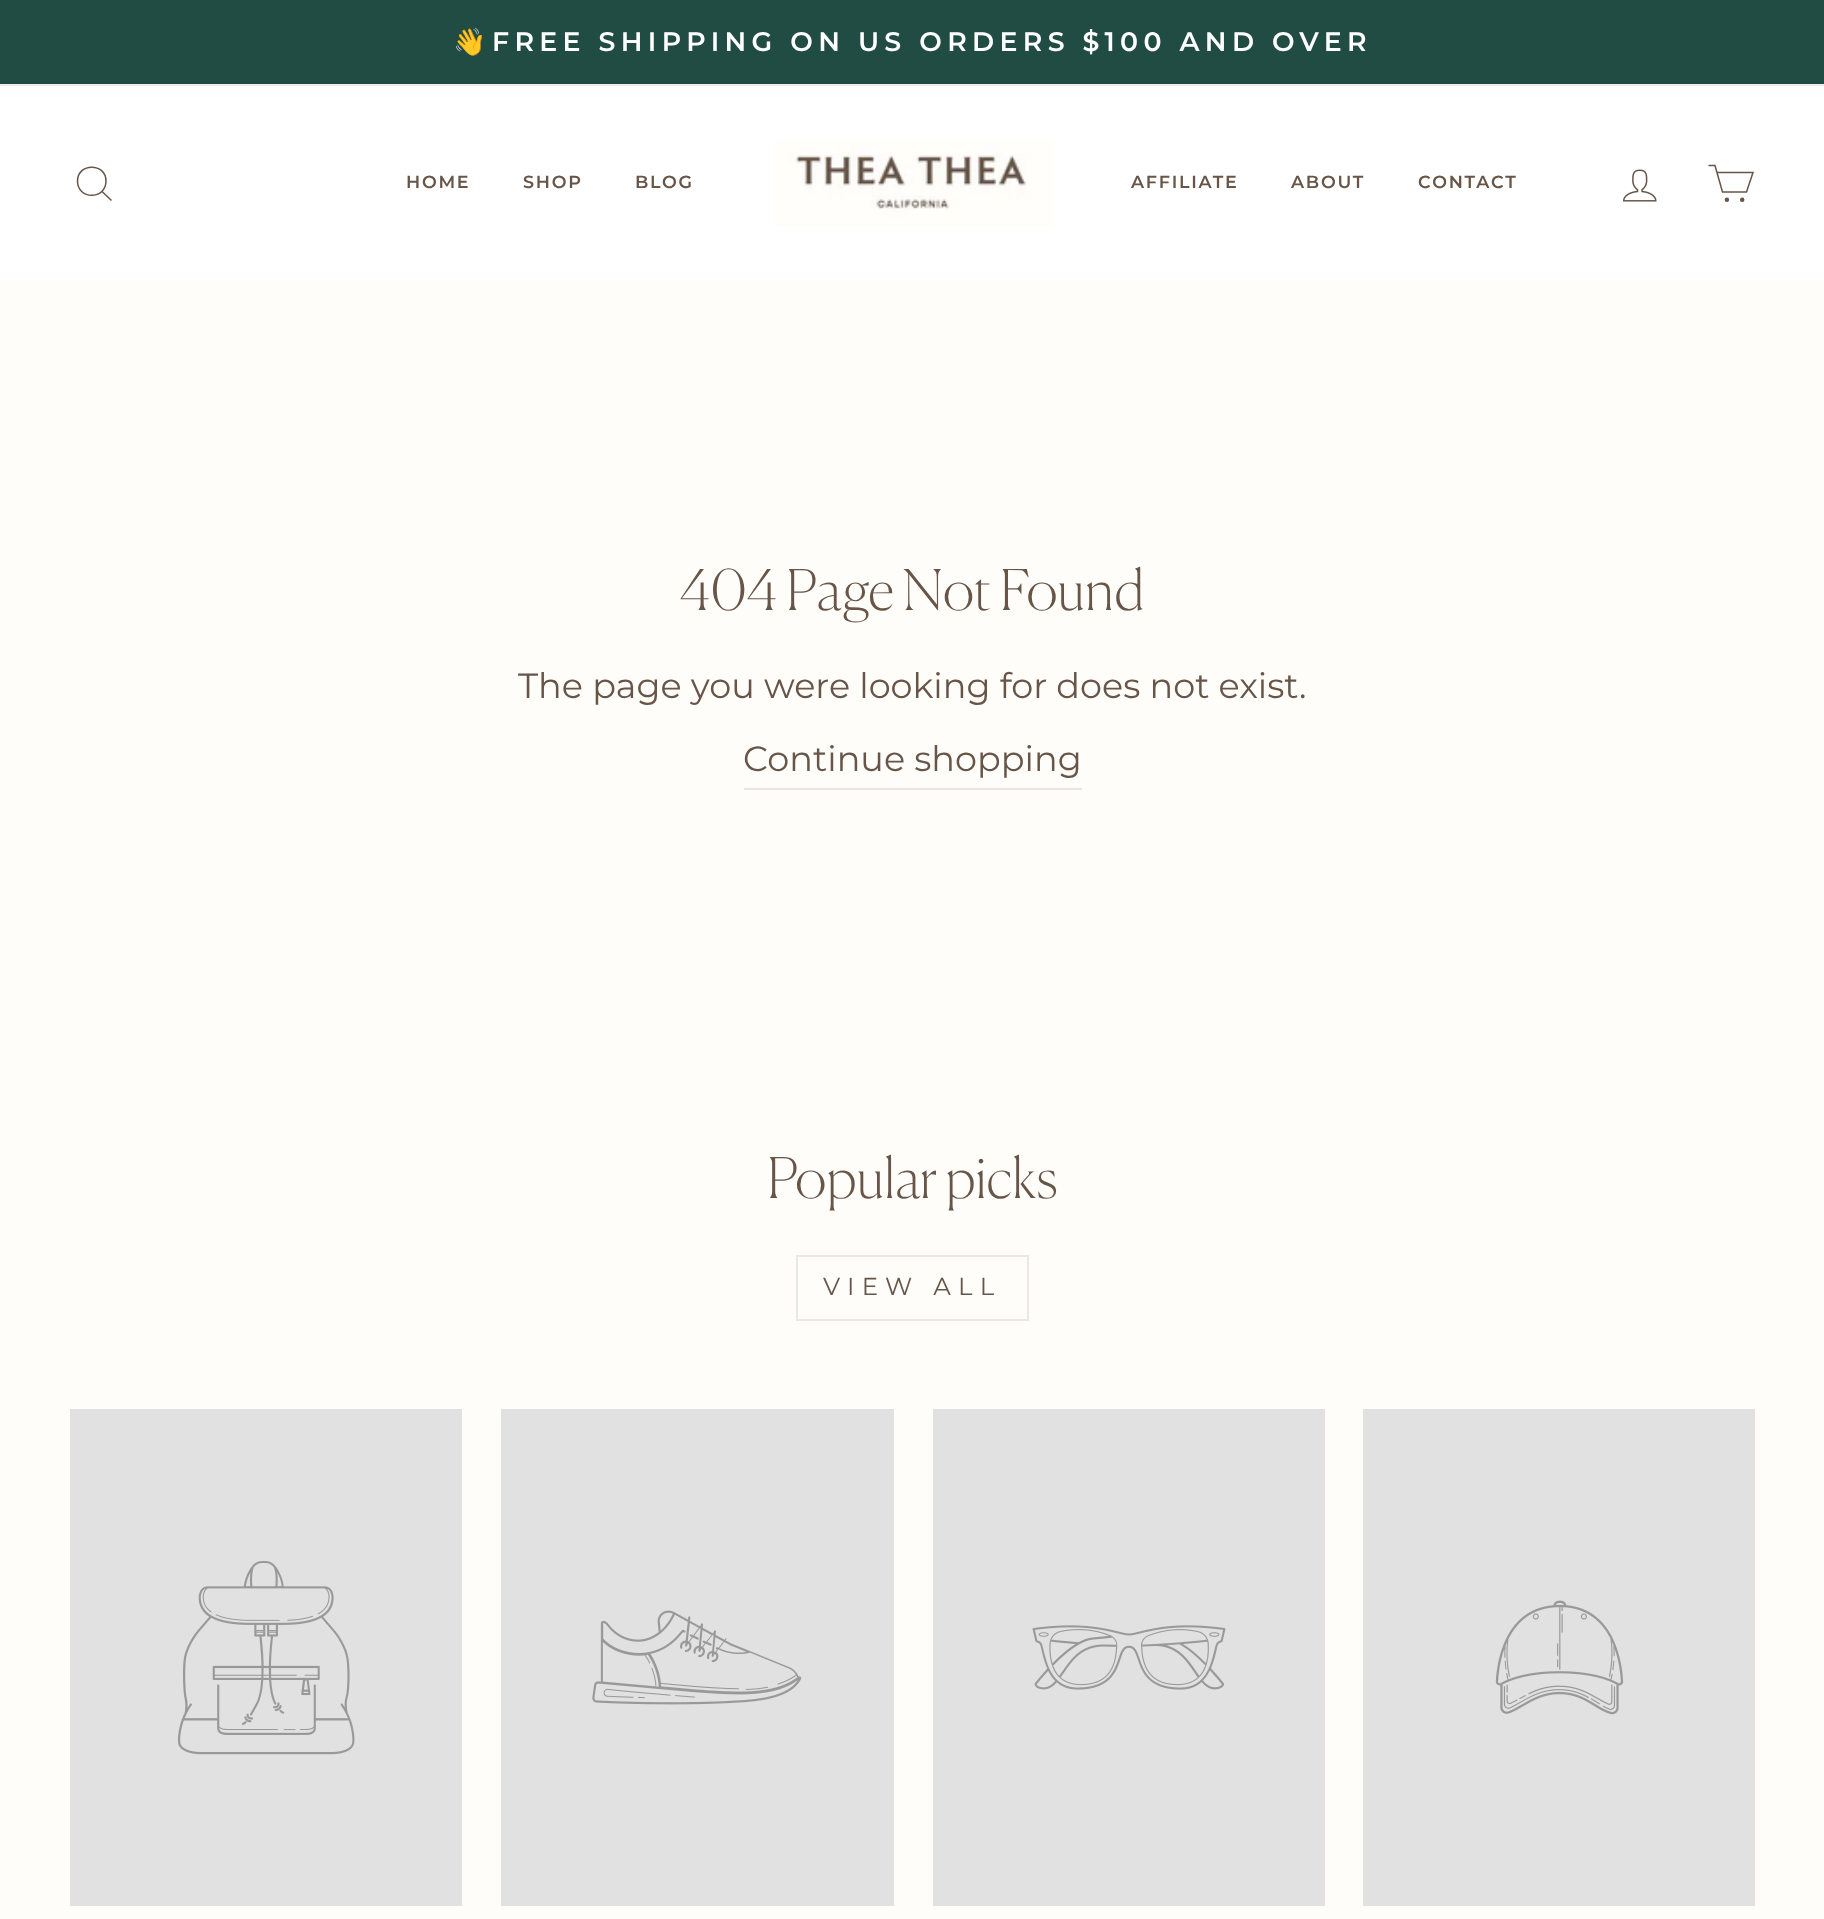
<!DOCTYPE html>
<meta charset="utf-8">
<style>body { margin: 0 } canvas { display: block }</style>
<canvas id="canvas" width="1824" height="1919"></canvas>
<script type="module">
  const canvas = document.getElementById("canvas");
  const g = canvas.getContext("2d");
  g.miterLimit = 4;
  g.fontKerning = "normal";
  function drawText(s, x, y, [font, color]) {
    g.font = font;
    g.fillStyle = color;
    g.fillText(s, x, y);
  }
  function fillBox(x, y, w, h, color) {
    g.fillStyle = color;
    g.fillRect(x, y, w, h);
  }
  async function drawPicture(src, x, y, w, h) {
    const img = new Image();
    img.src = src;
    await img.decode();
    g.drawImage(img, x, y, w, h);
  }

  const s1 = ["bold 26.75px Noto Color Emoji", "#FFFFFF"];
  const s2 = ["600 26.75px Montserrat", "#FFFFFF"];
  const s3 = ["600 17.5px Montserrat", "#675548"];
  const s4 = ["100 56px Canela", "#675548"];
  const s5 = ["35px Montserrat", "#675548"];
  const s6 = ["24.5px Montserrat", "#675548"];

  fillBox(0, 0, 1824, 1919, "#FFFDFA");
  fillBox(0, 0, 1824, 84, "#204C44");
  g.letterSpacing = "5.35px";
  drawText("👋", 453, 51, s1);
  drawText("FREE SHIPPING ON US ORDERS $100 AND OVER", 492, 51, s2);
  fillBox(0, 86, 1824, 194, "#FFFFFF");
  fillBox(0, 84, 1824, 2, "#F0EEED");
  g.beginPath();
  g.moveTo(106, 181);
  g.bezierCurveTo(106, 200, 77.5, 200, 77.5, 181);
  g.bezierCurveTo(77.5, 162.5, 106, 162.5, 106, 181);
  g.closePath();
  g.moveTo(111.5, 200.5);
  g.lineTo(102, 191.5);
  g.strokeStyle = "#675548";
  g.lineWidth = 1.5;
  g.stroke();
  g.letterSpacing = "1.75px";
  drawText("HOME", 406, 188, s3);
  drawText("SHOP", 523, 188, s3);
  drawText("BLOG", 635, 188, s3);
  await drawPicture("pic1.png", 774, 140, 279, 87);
  drawText("AFFILIATE", 1131, 188, s3);
  drawText("ABOUT", 1291, 188, s3);
  drawText("CONTACT", 1418, 188, s3);
  await drawPicture("pic2.png", 1622, 169, 35, 33);
  g.beginPath();
  g.moveTo(1717, 172.5);
  g.lineTo(1753, 172.5);
  g.lineTo(1746.5, 192);
  g.lineTo(1722.5, 192);
  g.lineTo(1715, 165.5);
  g.lineTo(1708.5, 165.5);
  g.stroke();
  g.beginPath();
  g.arc(1726.9, 199.8, 1.5, 0, Math.PI * 2);
  g.fill();
  g.stroke();
  g.beginPath();
  g.arc(1742.2, 199.8, 1.5, 0, Math.PI * 2);
  g.fill();
  g.stroke();
  g.letterSpacing = "0px";
  drawText("404 Page Not Found", 680, 610, s4);
  drawText("The page you were looking for does not exist.", 518, 698, s5);
  fillBox(744, 788, 338, 2, "#E8E4DF");
  drawText("Continue shopping", 743, 771, s5);
  drawText("Popular picks", 767, 1198, s4);
  g.strokeStyle = "#EAE7E5";
  g.lineWidth = 2;
  g.strokeRect(797, 1256, 231, 64);
  g.letterSpacing = "7.25px";
  drawText("VIEW ALL", 823, 1295, s6);
  fillBox(70, 1409, 392, 497, "#E1E1E1");
  await drawPicture("pic3.png", 178, 1560, 177, 195);
  fillBox(501, 1409, 393, 497, "#E1E1E1");
  await drawPicture("pic4.png", 592, 1610, 210, 95);
  fillBox(933, 1409, 392, 497, "#E1E1E1");
  await drawPicture("pic5.png", 1032, 1625, 194, 65);
  fillBox(1363, 1409, 392, 497, "#E1E1E1");
  await drawPicture("pic6.png", 1495, 1600, 129, 115);
</script>
